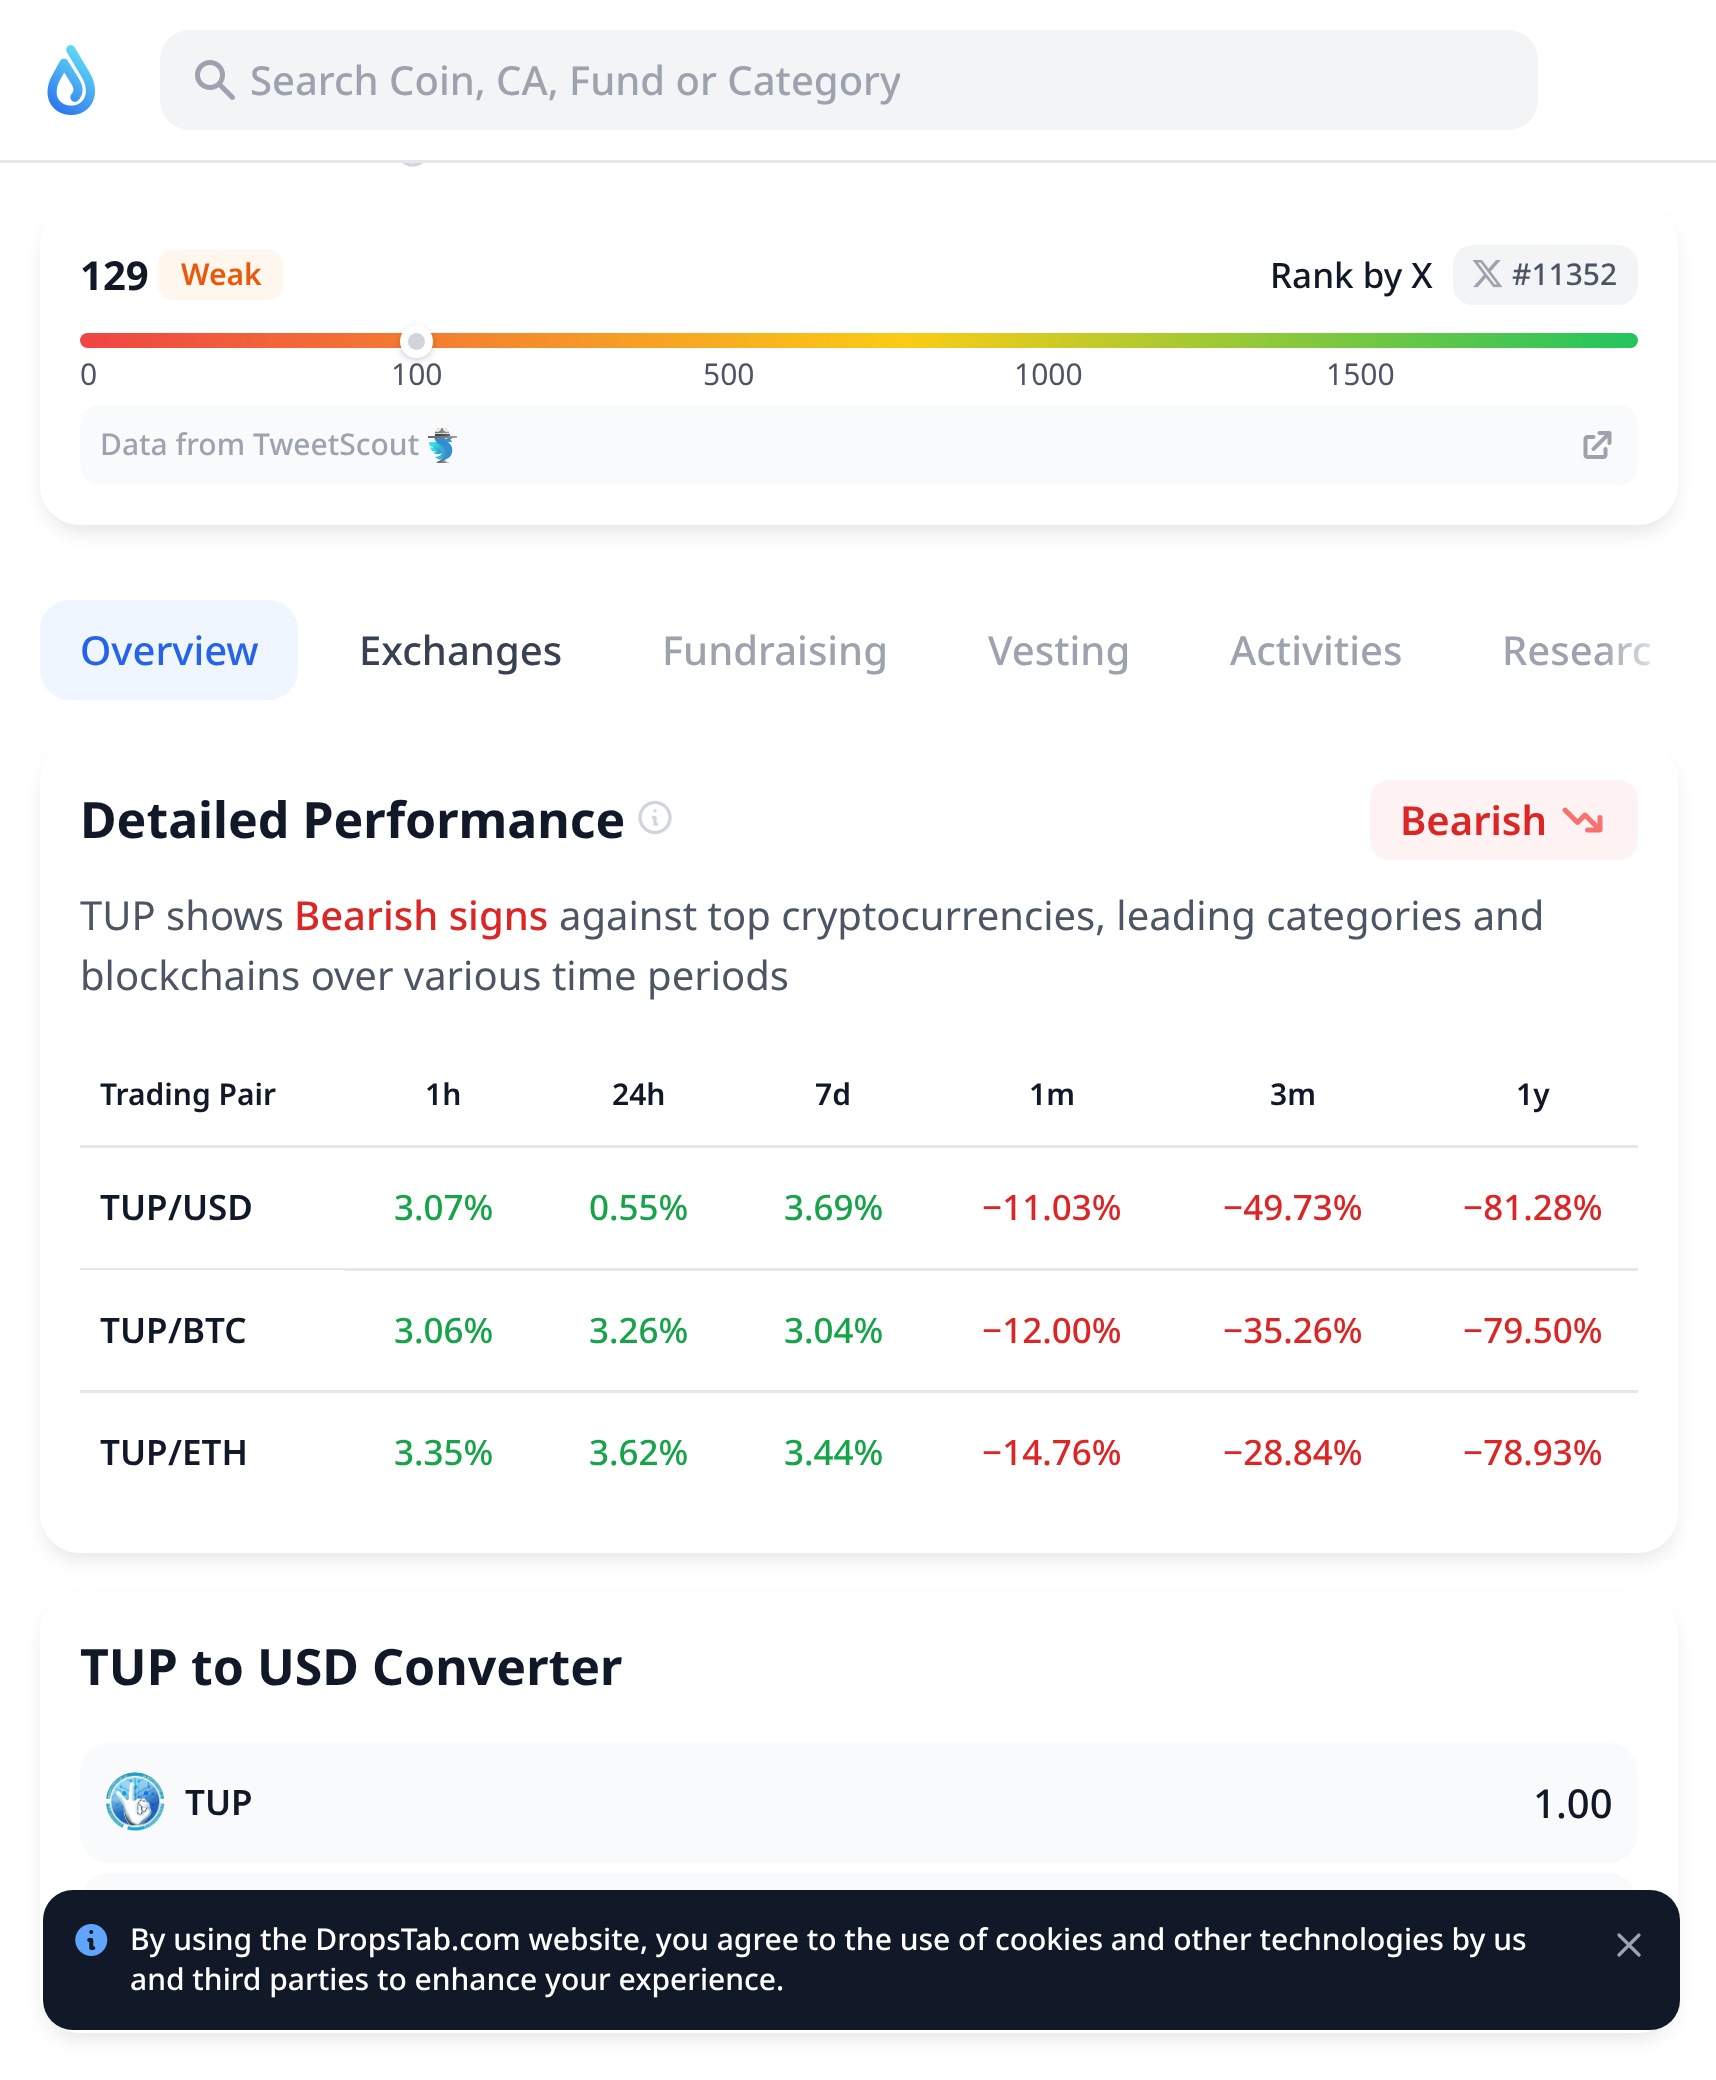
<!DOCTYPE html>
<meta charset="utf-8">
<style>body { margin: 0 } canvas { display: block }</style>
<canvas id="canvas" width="1716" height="2080"></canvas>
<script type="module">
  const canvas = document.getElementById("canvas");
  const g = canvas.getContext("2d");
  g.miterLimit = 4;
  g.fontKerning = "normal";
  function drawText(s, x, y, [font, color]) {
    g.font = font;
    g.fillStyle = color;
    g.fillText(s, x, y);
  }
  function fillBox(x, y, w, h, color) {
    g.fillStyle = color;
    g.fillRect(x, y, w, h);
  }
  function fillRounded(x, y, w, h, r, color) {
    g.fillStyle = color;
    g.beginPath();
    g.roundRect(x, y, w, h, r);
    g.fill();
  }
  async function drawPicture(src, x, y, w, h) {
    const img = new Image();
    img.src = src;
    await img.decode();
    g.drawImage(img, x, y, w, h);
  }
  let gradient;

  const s1 = ["500 40px Noto Sans", "#9CA3AF"];
  const s2 = ["bold 40px Noto Sans", "#111827"];
  const s3 = ["600 30px Noto Sans", "#EA580C"];
  const s4 = ["500 35px Noto Sans", "#111827"];
  const s5 = ["500 30px Noto Sans", "#4B5563"];
  const s6 = ["30px Noto Sans", "#4B5563"];
  const s7 = ["500 30px Noto Sans", "#9CA3AF"];
  const s8 = ["500 40px Noto Sans", "#2563EB"];
  const s9 = ["500 40px Noto Sans", "#374151"];
  const s10 = ["bold 50px Noto Sans", "#111827"];
  const s11 = ["600 40px Noto Sans", "#DC2626"];
  const s12 = ["40px Noto Sans", "#4B5563"];
  const s13 = ["500 40px Noto Sans", "#DC2626"];
  const s14 = ["600 30px Noto Sans", "#111827"];
  const s15 = ["600 35px Noto Sans", "#111827"];
  const s16 = ["500 35px Noto Sans", "#16A34A"];
  const s17 = ["500 35px Noto Sans", "#DC2626"];
  const s18 = ["500 40px Noto Sans", "#111827"];
  const s19 = ["500 30px Noto Sans", "#FFFFFF"];

  fillBox(0, 0, 1716, 2080, "#FFFFFF");
  fillBox(0, 160, 1716, 3, "#E5E7EB");
  await drawPicture("pic1.png", 47, 45, 48, 70);
  fillRounded(160, 30, 1378, 100, 30, "#F3F4F6");
  await drawPicture("pic2.png", 195, 60, 40, 40);
  g.save();
  g.beginPath();
  g.rect(250, 50, 650, 60);
  g.clip();
  drawText("Search Coin, CA, Fund or Category", 250, 95, s1);
  g.restore();
  await drawPicture("pic3.png", 402, 163, 21, 4);
  g.save();
  g.beginPath();
  g.moveTo(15, 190);
  g.lineTo(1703, 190);
  g.lineTo(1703, 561);
  g.lineTo(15, 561);
  g.closePath();
  g.moveTo(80, 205);
  g.lineTo(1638, 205);
  g.bezierCurveTo(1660, 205, 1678, 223, 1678, 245);
  g.lineTo(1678, 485);
  g.bezierCurveTo(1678, 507, 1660, 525, 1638, 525);
  g.lineTo(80, 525);
  g.bezierCurveTo(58, 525, 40, 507, 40, 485);
  g.lineTo(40, 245);
  g.bezierCurveTo(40, 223, 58, 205, 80, 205);
  g.closePath();
  g.clip("evenodd");
  g.fillStyle = "rgba(17, 24, 39, 0.1)";
  g.filter = "blur(9px)";
  g.beginPath();
  g.roundRect(43, 218, 1632, 315, 38);
  g.fill();
  g.filter = "none";
  g.restore();
  drawText("129", 80, 290, s2);
  fillRounded(158, 250, 125, 50, 15, "#FFF7ED");
  drawText("Weak", 181, 285, s3);
  drawText("Rank by X", 1270, 288, s4);
  fillRounded(1453, 245, 185, 60, 20, "#F3F4F6");
  await drawPicture("pic4.png", 1473, 260, 30, 28);
  drawText("#11352", 1512, 285, s5);
  gradient = g.createLinearGradient(80, 340, 1638, 340);
  gradient.addColorStop(0, "#EF4444");
  gradient.addColorStop(0.53, "#FACC15");
  gradient.addColorStop(1, "#22C55E");
  g.fillStyle = gradient;
  g.beginPath();
  g.roundRect(80, 333, 1558, 15, 7.5);
  g.fill();
  g.fillStyle = "rgba(17, 24, 39, 0.1)";
  g.filter = "blur(2.5px)";
  g.beginPath();
  g.roundRect(400, 328, 33, 32, 16);
  g.fill();
  g.filter = "none";
  g.filter = "blur(4px)";
  g.beginPath();
  g.roundRect(400, 328, 33, 32, 16);
  g.fill();
  g.filter = "none";
  g.fillStyle = "#D1D5DB";
  g.beginPath();
  g.arc(416.5, 341.5, 12.5, 0, Math.PI * 2);
  g.fill();
  g.strokeStyle = "#FFFFFF";
  g.lineWidth = 8;
  g.stroke();
  drawText("0", 80, 385, s6);
  drawText("100", 391, 385, s6);
  drawText("500", 703, 385, s6);
  drawText("1000", 1014, 385, s6);
  drawText("1500", 1326, 385, s6);
  fillRounded(80, 405, 1558, 80, 20, "#F8FAFC");
  drawText("Data from TweetScout", 100, 455, s7);
  await drawPicture("pic5.png", 428, 428, 29, 35);
  await drawPicture("pic6.png", 1583, 431, 29, 28);
  fillRounded(40, 600, 258, 100, 30, "#EFF6FF");
  drawText("Overview", 80, 665, s8);
  drawText("Exchanges", 359, 665, s9);
  drawText("Fundraising", 662, 665, s1);
  drawText("Vesting", 988, 665, s1);
  drawText("Activities", 1230, 665, s1);
  drawText("Researc", 1502, 665, s1);
  gradient = g.createLinearGradient(1600, 650, 1680, 650);
  gradient.addColorStop(0, "rgba(255, 255, 255, 0)");
  gradient.addColorStop(1, "#FFFFFF");
  g.fillStyle = gradient;
  g.fillRect(1602, 643, 49, 23);
  g.save();
  g.beginPath();
  g.moveTo(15, 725);
  g.lineTo(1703, 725);
  g.lineTo(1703, 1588);
  g.lineTo(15, 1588);
  g.closePath();
  g.moveTo(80, 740);
  g.lineTo(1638, 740);
  g.bezierCurveTo(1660, 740, 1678, 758, 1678, 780);
  g.lineTo(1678, 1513);
  g.bezierCurveTo(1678, 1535, 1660, 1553, 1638, 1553);
  g.lineTo(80, 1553);
  g.bezierCurveTo(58, 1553, 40, 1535, 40, 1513);
  g.lineTo(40, 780);
  g.bezierCurveTo(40, 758, 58, 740, 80, 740);
  g.closePath();
  g.clip("evenodd");
  g.fillStyle = "rgba(17, 24, 39, 0.1)";
  g.filter = "blur(9px)";
  g.beginPath();
  g.roundRect(43, 753, 1632, 807, 38);
  g.fill();
  g.filter = "none";
  g.restore();
  drawText("Detailed Performance", 80, 838, s10);
  await drawPicture("pic7.png", 638, 800, 34, 35);
  fillRounded(1370, 780, 268, 80, 20, "#FEF2F2");
  drawText("Bearish", 1400, 835, s11);
  await drawPicture("pic8.png", 1562, 807, 41, 26);
  drawText("TUP shows", 80, 930, s12);
  drawText("Bearish signs", 294, 930, s13);
  drawText("against top cryptocurrencies, leading categories and", 559, 930, s12);
  drawText("blockchains over various time periods", 80, 990, s12);
  drawText("Trading Pair", 100, 1105, s14);
  drawText("1h", 425, 1105, s14);
  drawText("24h", 612, 1105, s14);
  drawText("7d", 815, 1105, s14);
  drawText("1m", 1029, 1105, s14);
  drawText("3m", 1270, 1105, s14);
  fillBox(80, 1145, 1558, 3, "#E5E7EB");
  drawText("1y", 1516, 1105, s14);
  drawText("TUP", 100, 1220, s15);
  drawText("/USD", 168, 1220, s15);
  drawText("3.07%", 394, 1220, s16);
  drawText("0.55%", 589, 1220, s16);
  drawText("3.69%", 784, 1220, s16);
  drawText("−11.03%", 982, 1220, s17);
  drawText("−49.73%", 1223, 1220, s17);
  fillBox(80, 1268, 1558, 3, "#E5E7EB");
  drawText("−81.28%", 1463, 1220, s17);
  fillBox(80, 1270, 265, 1, "#FFFFFF");
  drawText("TUP", 100, 1343, s15);
  drawText("/BTC", 168, 1343, s15);
  drawText("3.06%", 394, 1343, s16);
  drawText("3.26%", 589, 1343, s16);
  drawText("3.04%", 784, 1343, s16);
  drawText("−12.00%", 982, 1343, s17);
  drawText("−35.26%", 1223, 1343, s17);
  fillBox(80, 1390, 1558, 3, "#E5E7EB");
  drawText("−79.50%", 1463, 1343, s17);
  drawText("TUP", 100, 1465, s15);
  drawText("/ETH", 168, 1465, s15);
  drawText("3.35%", 394, 1465, s16);
  drawText("3.62%", 589, 1465, s16);
  drawText("3.44%", 784, 1465, s16);
  drawText("−14.76%", 982, 1465, s17);
  drawText("−28.84%", 1223, 1465, s17);
  drawText("−78.93%", 1463, 1465, s17);
  g.save();
  g.beginPath();
  g.moveTo(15, 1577);
  g.lineTo(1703, 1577);
  g.lineTo(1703, 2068);
  g.lineTo(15, 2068);
  g.closePath();
  g.moveTo(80, 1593);
  g.lineTo(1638, 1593);
  g.bezierCurveTo(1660, 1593, 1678, 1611, 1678, 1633);
  g.lineTo(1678, 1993);
  g.bezierCurveTo(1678, 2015, 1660, 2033, 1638, 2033);
  g.lineTo(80, 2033);
  g.bezierCurveTo(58, 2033, 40, 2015, 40, 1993);
  g.lineTo(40, 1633);
  g.bezierCurveTo(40, 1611, 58, 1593, 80, 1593);
  g.closePath();
  g.clip("evenodd");
  g.fillStyle = "rgba(17, 24, 39, 0.1)";
  g.filter = "blur(9px)";
  g.beginPath();
  g.roundRect(43, 1605, 1632, 435, 38);
  g.fill();
  g.filter = "none";
  g.restore();
  drawText("TUP", 80, 1685, s10);
  drawText("to USD Converter", 191, 1685, s10);
  fillRounded(80, 1743, 1558, 120, 30, "#F9FAFB");
  await drawPicture("pic9.png", 105, 1772, 60, 60);
  drawText("TUP", 185, 1815, s15);
  drawText("1.00", 1533, 1818, s18);
  fillRounded(80, 1873, 1558, 120, 30, "#F9FAFB");
  fillRounded(43, 1890, 1637, 140, 30, "#111827");
  await drawPicture("pic10.png", 75, 1924, 33, 32);
  drawText("By using the DropsTab.com website, you agree to the use of cookies and other technologies by us", 130, 1950, s19);
  drawText("and third parties to enhance your experience.", 130, 1990, s19);
  g.beginPath();
  g.moveTo(1619, 1955);
  g.lineTo(1639, 1935);
  g.moveTo(1619, 1935);
  g.lineTo(1639, 1955);
  g.strokeStyle = "#9CA3AF";
  g.lineWidth = 3.3;
  g.lineCap = "round";
  g.lineJoin = "round";
  g.stroke();
</script>
